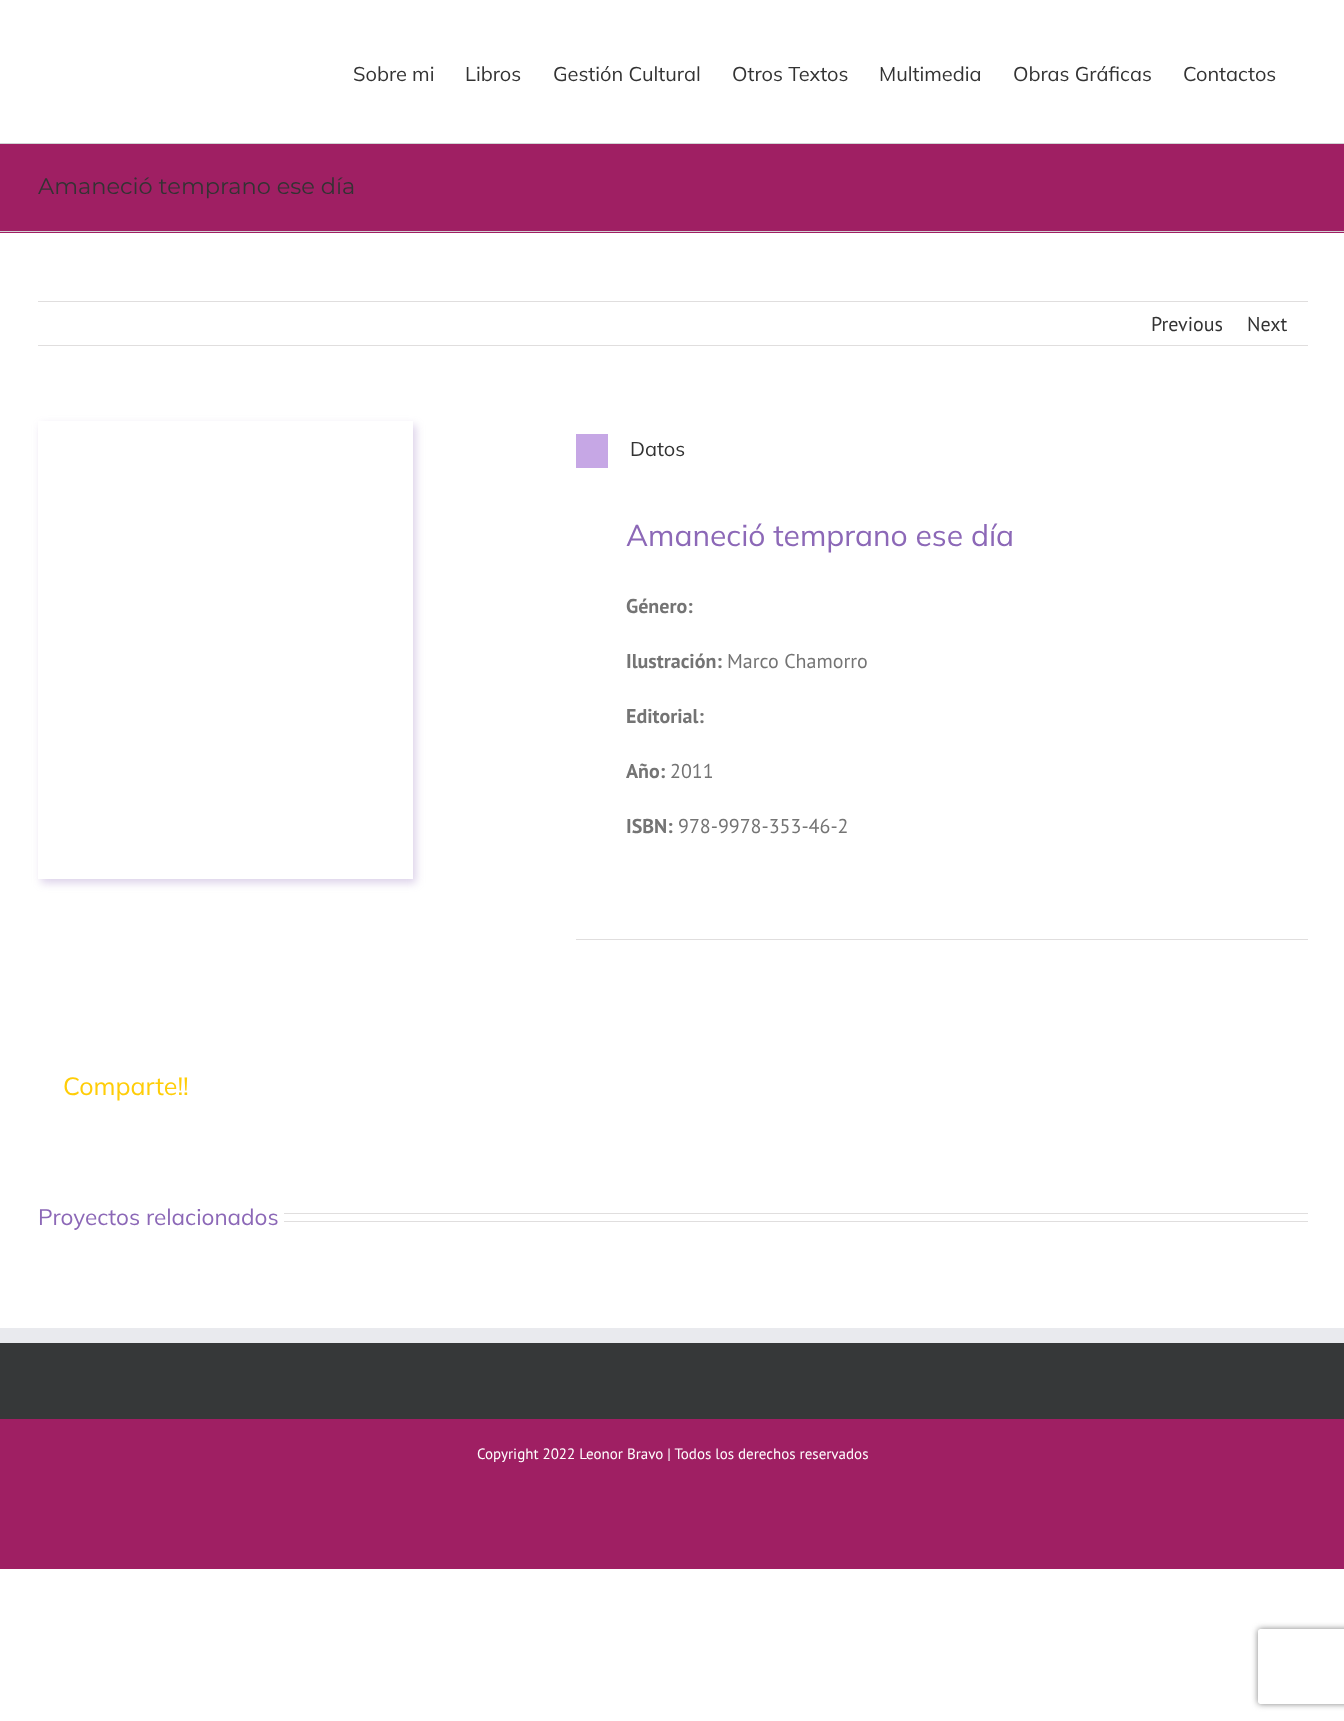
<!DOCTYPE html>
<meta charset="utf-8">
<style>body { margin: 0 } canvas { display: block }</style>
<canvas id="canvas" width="1344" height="1721"></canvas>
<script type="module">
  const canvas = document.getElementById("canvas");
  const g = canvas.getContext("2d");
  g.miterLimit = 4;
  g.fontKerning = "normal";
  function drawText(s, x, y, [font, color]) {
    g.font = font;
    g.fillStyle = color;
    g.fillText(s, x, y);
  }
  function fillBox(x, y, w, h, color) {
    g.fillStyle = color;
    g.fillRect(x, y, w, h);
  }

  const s1 = ["200 20px Mulish", "#333333"];
  const s2 = ["22.5px Montserrat", "#333333"];
  const s3 = ["20px PT Sans", "#333333"];
  const s4 = ["200 30px Mulish", "#8C68B7"];
  const s5 = ["bold 20px PT Sans", "#747474"];
  const s6 = ["20px PT Sans", "#747474"];
  const s7 = ["200 25px Mulish", "#FFCD07"];
  const s8 = ["200 22.5px Mulish", "#8C68B7"];
  const s9 = ["15px PT Sans", "#FFFFFF"];

  fillBox(0, 0, 1344, 1721, "#FFFFFF");
  drawText("Sobre mi", 353, 81, s1);
  drawText("Libros", 465, 81, s1);
  drawText("Gestión Cultural", 553, 81, s1);
  drawText("Otros Textos", 732, 81, s1);
  drawText("Multimedia", 879, 81, s1);
  drawText("Obras Gráficas", 1013, 81, s1);
  drawText("Contactos", 1183, 81, s1);
  fillBox(0, 144, 1344, 89, "#9F1F63");
  fillBox(0, 143, 1344, 1, "#D2D3D4");
  fillBox(0, 231, 1344, 1, "#D2D3D4");
  drawText("Amaneció temprano ese día", 38, 194, s2);
  fillBox(38, 301, 1270, 1, "#E0DEDE");
  fillBox(38, 345, 1270, 1, "#E0DEDE");
  drawText("Previous", 1151, 331, s3);
  drawText("Next", 1247, 331, s3);
  g.save();
  g.beginPath();
  g.moveTo(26, 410);
  g.lineTo(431, 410);
  g.lineTo(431, 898);
  g.lineTo(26, 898);
  g.closePath();
  g.moveTo(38, 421);
  g.lineTo(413, 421);
  g.lineTo(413, 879);
  g.lineTo(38, 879);
  g.closePath();
  g.clip("evenodd");
  g.fillStyle = "rgba(140, 104, 183, 0.3)";
  g.filter = "blur(4.5px)";
  g.beginPath();
  g.rect(41, 425, 375, 458);
  g.fill();
  g.filter = "none";
  g.restore();
  fillBox(576, 939, 732, 1, "#E0DEDE");
  fillBox(576, 434, 32, 34, "#C6A7E5");
  drawText("Datos", 630, 456, s1);
  drawText("Amaneció temprano ese día", 626, 546, s4);
  drawText("Género:", 626, 613, s5);
  drawText("Ilustración:", 626, 668, s5);
  drawText("Marco Chamorro", 727, 668, s6);
  drawText("Editorial:", 626, 723, s5);
  drawText("Año:", 626, 778, s5);
  drawText("2011", 670, 778, s6);
  drawText("ISBN:", 626, 833, s5);
  drawText("978-9978-353-46-2", 678, 833, s6);
  drawText("Comparte!!", 63, 1095, s7);
  drawText("Proyectos relacionados", 38, 1225, s8);
  fillBox(284, 1213, 1024, 1, "#E0DEDE");
  fillBox(284, 1221, 1024, 1, "#E0DEDE");
  fillBox(0, 1343, 1344, 76, "#363839");
  fillBox(0, 1328, 1344, 15, "#E9EAEE");
  fillBox(0, 1419, 1344, 150, "#9F1F63");
  drawText("Copyright 2022 Leonor Bravo | Todos los derechos reservados", 477, 1459, s9);
  g.save();
  g.beginPath();
  g.moveTo(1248, 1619);
  g.lineTo(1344, 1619);
  g.lineTo(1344, 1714);
  g.lineTo(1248, 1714);
  g.closePath();
  g.moveTo(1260.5, 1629);
  g.lineTo(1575.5, 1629);
  g.bezierCurveTo(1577, 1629, 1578, 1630, 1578, 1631.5);
  g.lineTo(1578, 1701.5);
  g.bezierCurveTo(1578, 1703, 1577, 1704, 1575.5, 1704);
  g.lineTo(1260.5, 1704);
  g.bezierCurveTo(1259, 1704, 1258, 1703, 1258, 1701.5);
  g.lineTo(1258, 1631.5);
  g.bezierCurveTo(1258, 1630, 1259, 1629, 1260.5, 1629);
  g.closePath();
  g.clip("evenodd");
  g.fillStyle = "#808080";
  g.filter = "blur(3px)";
  g.beginPath();
  g.roundRect(1258, 1629, 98, 75, 2.5);
  g.fill();
  g.filter = "none";
  g.restore();
</script>
